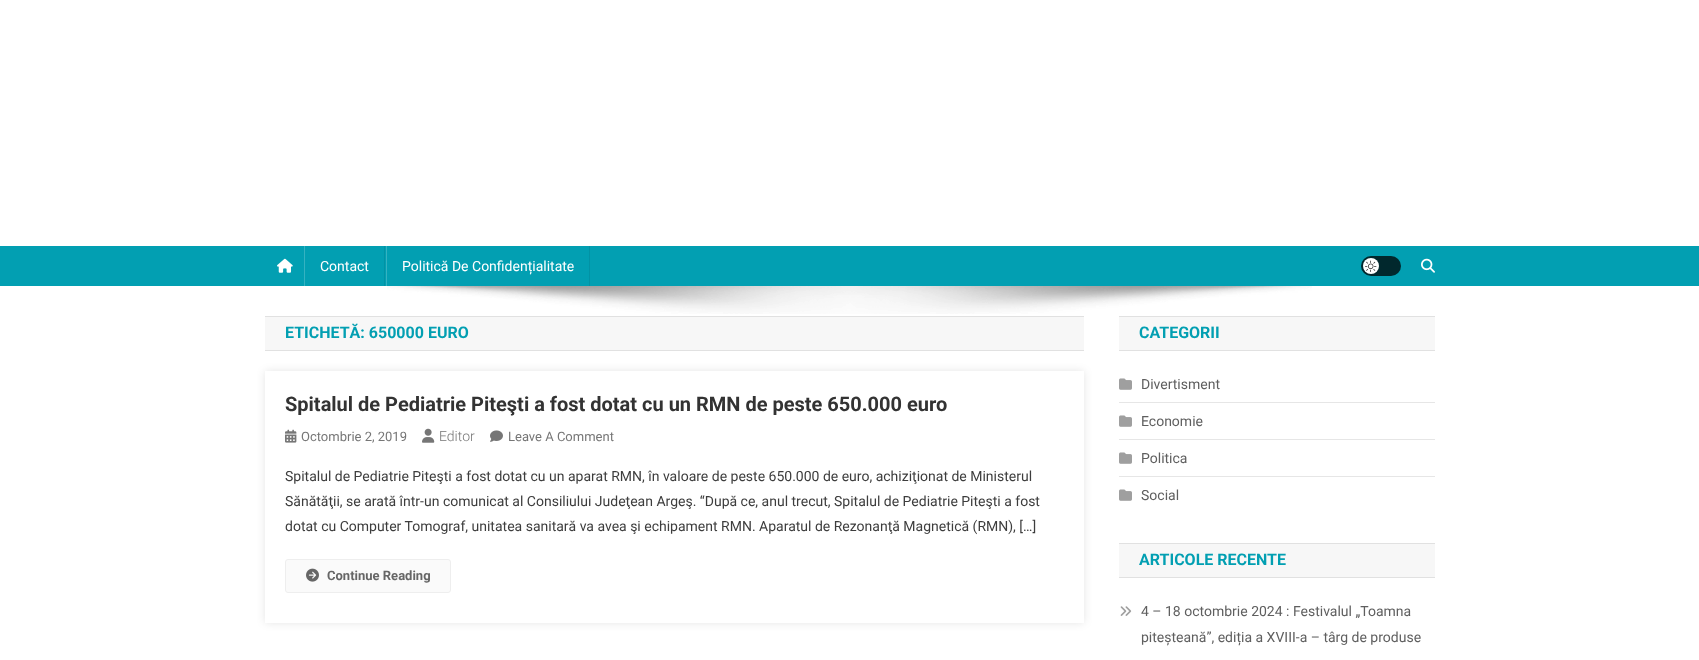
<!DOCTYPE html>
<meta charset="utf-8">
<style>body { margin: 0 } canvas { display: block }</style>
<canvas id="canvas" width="1699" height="660"></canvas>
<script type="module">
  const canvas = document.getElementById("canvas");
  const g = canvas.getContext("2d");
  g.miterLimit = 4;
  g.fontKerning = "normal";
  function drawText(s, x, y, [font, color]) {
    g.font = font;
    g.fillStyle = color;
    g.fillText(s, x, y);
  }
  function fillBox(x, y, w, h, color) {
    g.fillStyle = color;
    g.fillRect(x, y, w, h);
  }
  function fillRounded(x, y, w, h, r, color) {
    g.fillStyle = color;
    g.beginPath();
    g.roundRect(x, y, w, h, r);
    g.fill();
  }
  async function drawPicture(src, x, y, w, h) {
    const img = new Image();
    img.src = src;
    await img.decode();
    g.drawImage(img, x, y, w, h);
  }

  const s1 = ["14px Roboto", "#FFFFFF"];
  const s2 = ["bold 16px Roboto", "#029FB2"];
  const s3 = ["bold 20px Roboto", "#333333"];
  const s4 = ["13px Roboto", "#767676"];
  const s5 = ["300 14px Roboto", "#767676"];
  const s6 = ["14px Roboto", "#3D3D3D"];
  const s7 = ["bold 13px Roboto", "#666666"];
  const s8 = ["14px Roboto", "#5F5F5F"];

  fillBox(0, 0, 1699, 660, "#FFFFFF");
  fillBox(0, 246, 1699, 40, "#029FB2");
  await drawPicture("pic1.png", 277, 258, 16, 15);
  fillBox(384, 246, 1, 40, "#0292A4");
  fillBox(304, 246, 1, 40, "#35B2C1");
  drawText("Contact", 320, 271, s1);
  fillBox(589, 246, 1, 40, "#0292A4");
  fillBox(386, 246, 1, 40, "#35B2C1");
  drawText("Politică De Confidențialitate", 402, 271, s1);
  fillRounded(1361, 256, 40, 20, 10, "#01282D");
  g.fillStyle = "#FFFFFF";
  g.beginPath();
  g.arc(1371, 266, 8, 0, Math.PI * 2);
  g.fill();
  await drawPicture("pic2.png", 1365, 260, 12, 12);
  await drawPicture("pic3.png", 1421, 258, 14, 15);
  await drawPicture("pic4.png", 387, 286, 925, 28);
  fillBox(265, 317, 819, 33, "#F7F7F7");
  fillBox(265, 316, 819, 1, "#E1E1E1");
  fillBox(265, 350, 819, 1, "#E1E1E1");
  drawText("ETICHETĂ: 650000 EURO", 285, 338, s2);
  g.save();
  g.beginPath();
  g.moveTo(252, 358);
  g.lineTo(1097, 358);
  g.lineTo(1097, 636);
  g.lineTo(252, 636);
  g.closePath();
  g.moveTo(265, 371);
  g.lineTo(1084, 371);
  g.lineTo(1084, 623);
  g.lineTo(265, 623);
  g.closePath();
  g.clip("evenodd");
  g.fillStyle = "rgba(0, 0, 0, 0.1)";
  g.filter = "blur(4px)";
  g.beginPath();
  g.rect(265, 371, 819, 252);
  g.fill();
  g.filter = "none";
  g.restore();
  drawText("Spitalul de Pediatrie Piteşti a fost dotat cu un RMN de peste 650.000 euro", 285, 411, s3);
  await drawPicture("pic5.png", 285, 429, 12, 14);
  drawText("Octombrie 2, 2019", 301, 441, s4);
  await drawPicture("pic6.png", 422, 428, 13, 15);
  drawText("Editor", 439, 441, s5);
  await drawPicture("pic7.png", 490, 430, 13, 12);
  drawText("Leave A Comment", 508, 441, s4);
  drawText("Spitalul de Pediatrie Piteşti a fost dotat cu un aparat RMN, în valoare de peste 650.000 de euro, achiziţionat de Ministerul", 285, 481, s6);
  drawText("Sănătăţii, se arată într-un comunicat al Consiliului Judeţean Argeş. “După ce, anul trecut, Spitalul de Pediatrie Piteşti a fost", 285, 506, s6);
  drawText("dotat cu Computer Tomograf, unitatea sanitară va avea şi echipament RMN. Aparatul de Rezonanţă Magnetică (RMN), […]", 285, 531, s6);
  g.fillStyle = "#FAFAFA";
  g.beginPath();
  g.roundRect(285.5, 559.5, 165, 33, 2.5);
  g.fill();
  g.strokeStyle = "#EEEEEE";
  g.stroke();
  await drawPicture("pic8.png", 306, 568, 13, 14);
  drawText("Continue Reading", 327, 580, s7);
  fillBox(1119, 317, 316, 33, "#F7F7F7");
  fillBox(1119, 316, 316, 1, "#E1E1E1");
  fillBox(1119, 350, 316, 1, "#E1E1E1");
  drawText("CATEGORII", 1139, 338, s2);
  fillBox(1119, 402, 316, 1, "#E6E6E6");
  await drawPicture("pic9.png", 1119, 378, 13, 12);
  drawText("Divertisment", 1141, 389, s8);
  fillBox(1119, 439, 316, 1, "#E6E6E6");
  await drawPicture("pic9.png", 1119, 415, 13, 12);
  drawText("Economie", 1141, 426, s8);
  fillBox(1119, 476, 316, 1, "#E6E6E6");
  await drawPicture("pic9.png", 1119, 452, 13, 12);
  drawText("Politica", 1141, 463, s8);
  await drawPicture("pic9.png", 1119, 489, 13, 12);
  drawText("Social", 1141, 500, s8);
  fillBox(1119, 544, 316, 33, "#F7F7F7");
  fillBox(1119, 543, 316, 1, "#E1E1E1");
  fillBox(1119, 577, 316, 1, "#E1E1E1");
  drawText("ARTICOLE RECENTE", 1139, 565, s2);
  await drawPicture("pic10.png", 1120, 606, 12, 10);
  drawText("4 – 18 octombrie 2024 : Festivalul „Toamna", 1141, 616, s8);
  drawText("piteșteană”, ediția a XVIII-a – târg de produse", 1141, 642, s8);
</script>
